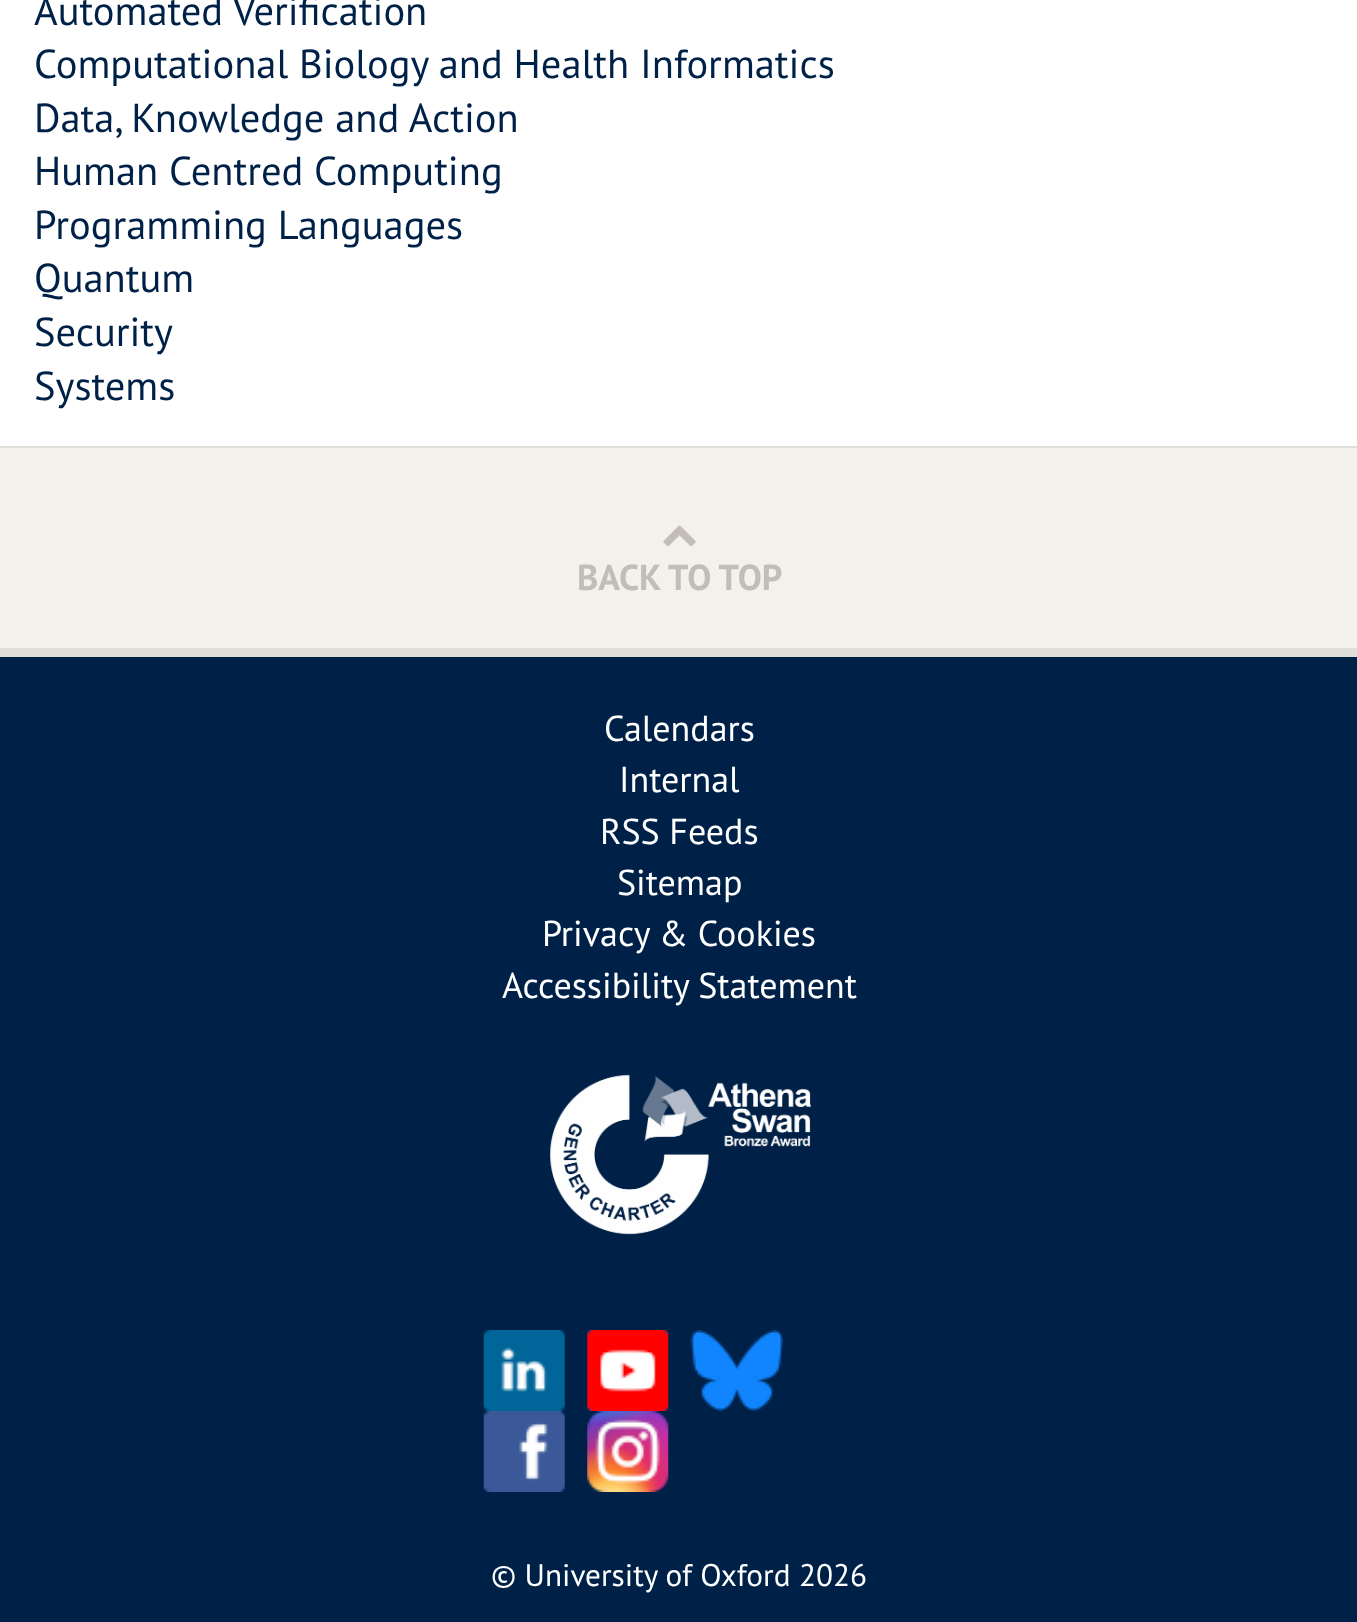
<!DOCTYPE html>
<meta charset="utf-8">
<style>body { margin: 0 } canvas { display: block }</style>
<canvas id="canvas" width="1357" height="1622"></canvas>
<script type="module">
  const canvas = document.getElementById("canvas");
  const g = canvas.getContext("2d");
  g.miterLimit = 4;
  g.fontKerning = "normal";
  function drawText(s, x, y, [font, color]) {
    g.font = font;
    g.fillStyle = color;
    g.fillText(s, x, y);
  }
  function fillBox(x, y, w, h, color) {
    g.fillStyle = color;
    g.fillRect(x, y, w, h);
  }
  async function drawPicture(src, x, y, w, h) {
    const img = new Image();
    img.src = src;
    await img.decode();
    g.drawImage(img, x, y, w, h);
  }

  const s1 = ["40.5px PT Sans", "#002147"];
  const s2 = ["bold 36px PT Sans", "#C3BDB7"];
  const s3 = ["36px PT Sans", "#FFFFFF"];
  const s4 = ["31.25px PT Sans", "#FFFFFF"];

  fillBox(0, 0, 1357, 1622, "#F3F1EC");
  fillBox(0, 0, 1357, 446, "#FFFFFF");
  fillBox(0, 446, 1357, 2, "#E0DED9");
  drawText("Automated Verification", 34, 25, s1);
  drawText("Computational Biology and Health Informatics", 34, 78, s1);
  drawText("Data, Knowledge and Action", 34, 132, s1);
  drawText("Human Centred Computing", 34, 185, s1);
  drawText("Programming Languages", 34, 239, s1);
  drawText("Quantum", 34, 292, s1);
  drawText("Security", 34, 346, s1);
  drawText("Systems", 34, 400, s1);
  await drawPicture("pic1.png", 663, 525, 33, 22);
  drawText("BACK TO TOP", 577, 590, s2);
  fillBox(0, 657, 1357, 965, "#002147");
  fillBox(0, 648, 1357, 9, "#E0DED9");
  drawText("Calendars", 604, 741, s3);
  drawText("Internal", 619, 792, s3);
  drawText("RSS Feeds", 600, 844, s3);
  drawText("Sitemap", 617, 895, s3);
  drawText("Privacy & Cookies", 542, 946, s3);
  drawText("Accessibility Statement", 502, 998, s3);
  await drawPicture("pic2.png", 549, 1074, 262, 161);
  await drawPicture("pic3.png", 483, 1330, 82, 81);
  await drawPicture("pic4.png", 587, 1330, 82, 81);
  await drawPicture("pic5.png", 690, 1330, 93, 81);
  await drawPicture("pic6.png", 483, 1411, 82, 81);
  await drawPicture("pic7.png", 587, 1411, 82, 81);
  drawText("© University of Oxford 2026", 491, 1586, s4);
</script>
